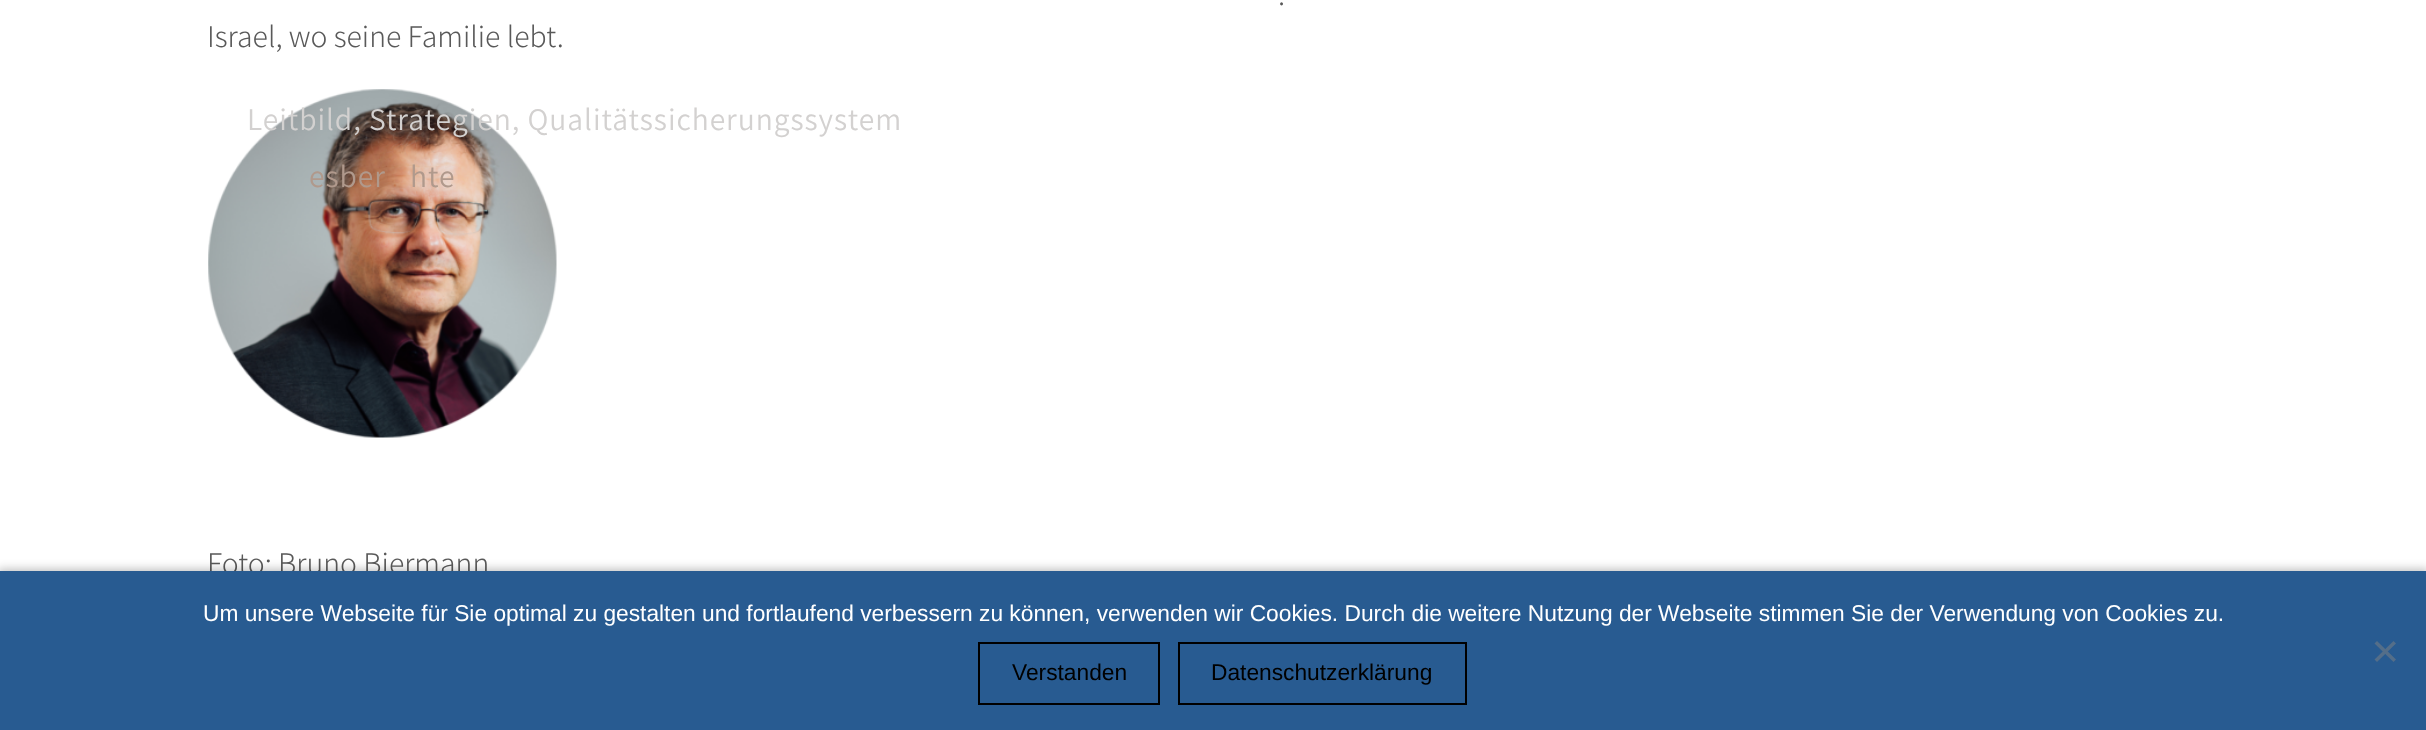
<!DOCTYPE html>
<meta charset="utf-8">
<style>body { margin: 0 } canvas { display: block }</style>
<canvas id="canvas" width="2426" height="730"></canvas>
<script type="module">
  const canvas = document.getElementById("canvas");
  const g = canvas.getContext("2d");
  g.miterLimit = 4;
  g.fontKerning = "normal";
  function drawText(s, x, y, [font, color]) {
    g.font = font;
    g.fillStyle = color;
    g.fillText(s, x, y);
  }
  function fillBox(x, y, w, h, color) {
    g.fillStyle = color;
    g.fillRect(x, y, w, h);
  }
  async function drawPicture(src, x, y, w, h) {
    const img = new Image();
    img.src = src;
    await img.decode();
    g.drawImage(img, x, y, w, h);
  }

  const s1 = ["300 31.5px Assistant", "#595959"];
  const s2 = ["31.5px Assistant", "#D3D1D0"];
  const s3 = ["31.5px Assistant", "#B0998C"];
  const s4 = ["22.75px Liberation Sans", "#FFFFFF"];
  const s5 = ["22.75px Liberation Sans", "#000000"];

  fillBox(0, 0, 2426, 730, "#FFFFFF");
  drawText(".", 1278, 5, s1);
  drawText("Israel, wo seine Familie lebt.", 207, 47, s1);
  await drawPicture("pic1.png", 208, 89, 349, 349);
  drawText("Foto: Bruno Biermann", 207, 574, s1);
  g.letterSpacing = "0.95px";
  drawText("Leitbild, Strategien, Qualitätssicherungssystem", 247, 130, s2);
  drawText("esber", 309, 187, s3);
  drawText("hte", 410, 187, s3);
  g.fillStyle = "rgba(0, 0, 0, 0.25)";
  g.filter = "blur(5px)";
  g.beginPath();
  g.rect(-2, 569, 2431, 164);
  g.fill();
  g.filter = "none";
  fillBox(0, 571, 2426, 159, "#285B91");
  g.letterSpacing = "0px";
  drawText("Um unsere Webseite für Sie optimal zu gestalten und fortlaufend verbessern zu können, verwenden wir Cookies. Durch die weitere Nutzung der Webseite stimmen Sie der Verwendung von Cookies zu.", 203, 621, s4);
  g.fillStyle = "#546E89";
  g.beginPath();
  g.moveTo(2393.5, 641);
  g.lineTo(2396, 643.5);
  g.lineTo(2377, 662);
  g.lineTo(2374.5, 659.5);
  g.closePath();
  g.fill();
  g.beginPath();
  g.moveTo(2374.5, 643.5);
  g.lineTo(2377, 641);
  g.lineTo(2396, 659.5);
  g.lineTo(2393.5, 662);
  g.closePath();
  g.fill();
  g.strokeStyle = "#000000";
  g.lineWidth = 2;
  g.strokeRect(979, 643, 180, 61);
  drawText("Verstanden", 1012, 680, s5);
  g.strokeRect(1179, 643, 287, 61);
  drawText("Datenschutzerklärung", 1211, 680, s5);
</script>
